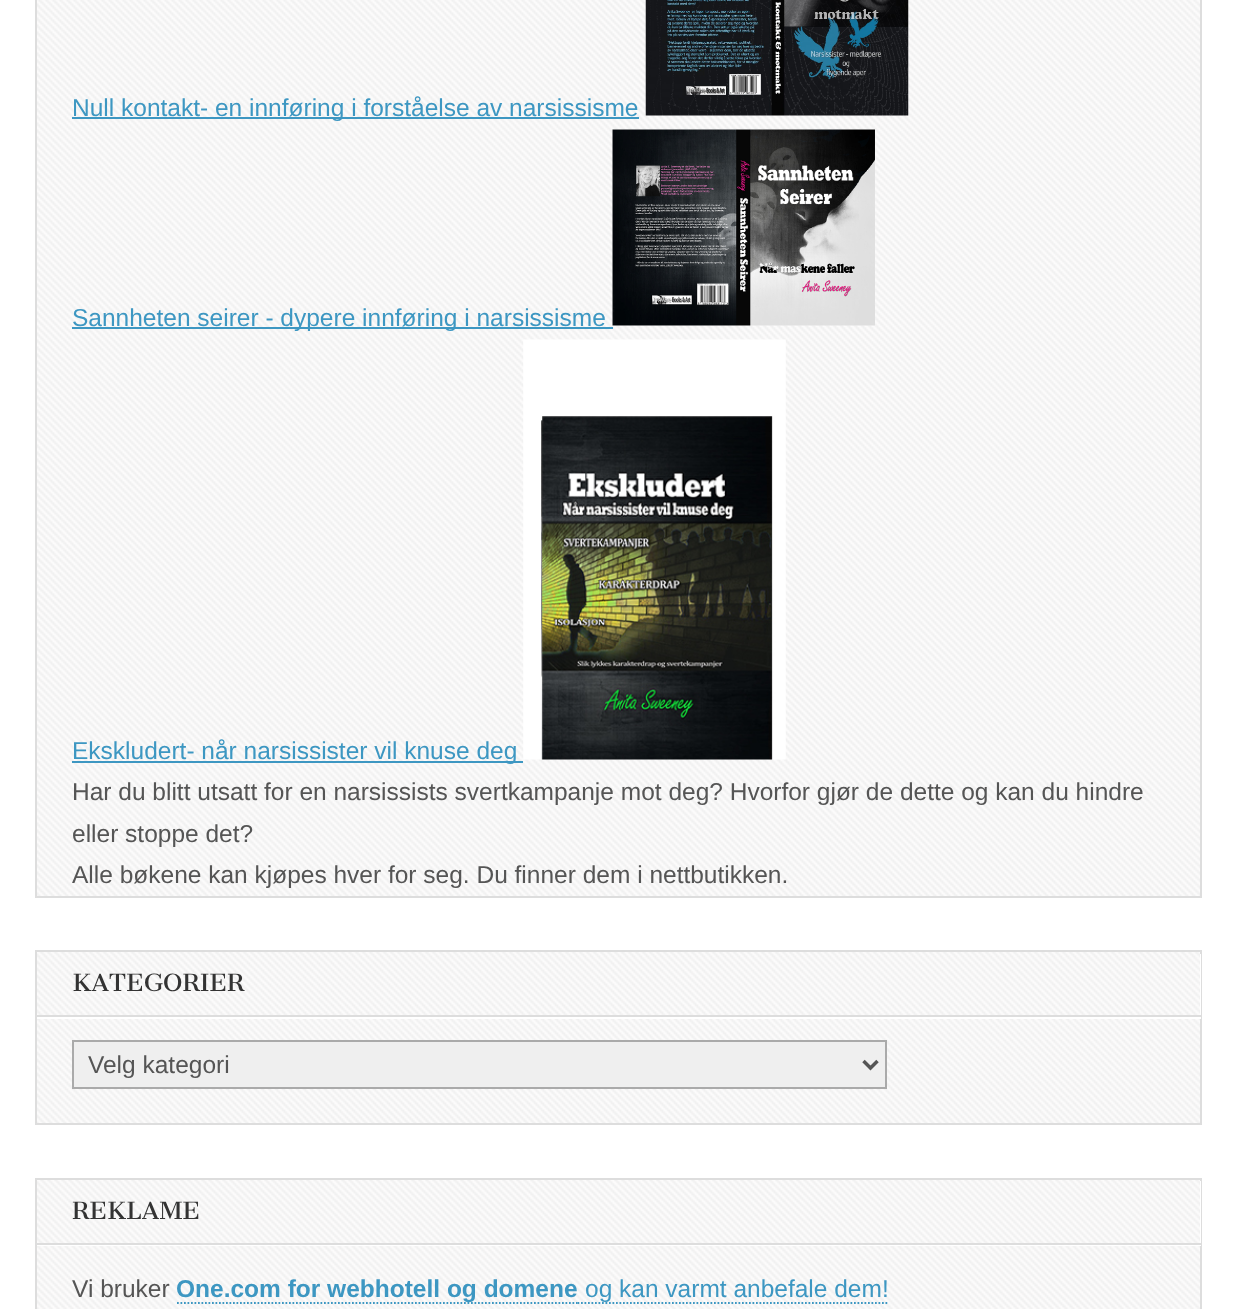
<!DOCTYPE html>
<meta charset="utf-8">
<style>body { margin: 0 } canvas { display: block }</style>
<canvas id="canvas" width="1237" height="1309"></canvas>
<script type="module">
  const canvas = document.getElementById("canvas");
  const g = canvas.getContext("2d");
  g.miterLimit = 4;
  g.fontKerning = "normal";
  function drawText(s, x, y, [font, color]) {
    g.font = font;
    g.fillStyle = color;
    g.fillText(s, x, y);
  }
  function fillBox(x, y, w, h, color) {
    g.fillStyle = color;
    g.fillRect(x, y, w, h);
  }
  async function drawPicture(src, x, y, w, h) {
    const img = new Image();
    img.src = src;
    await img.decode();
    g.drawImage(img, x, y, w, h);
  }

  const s1 = ["24.5px Liberation Sans", "#3D97C2"];
  const s2 = ["24.5px Liberation Sans", "#555555"];
  const s3 = ["23.25px Cantata One", "#333333"];
  const s4 = ["bold 24.5px Liberation Sans", "#3D97C2"];

  fillBox(0, 0, 1237, 1309, "#FFFFFF");
  await drawPicture("pic1.png", 37, 0, 1163, 896);
  g.strokeStyle = "#DDDDDD";
  g.lineWidth = 2;
  g.strokeRect(36, -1, 1165, 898);
  fillBox(72, 117, 567, 2, "#3D97C2");
  drawText("Null kontakt- en innføring i forståelse av narsissisme", 72, 116, s1);
  await drawPicture("pic2.png", 645, 0, 264, 116);
  fillBox(72, 327, 541, 2, "#3D97C2");
  drawText("Sannheten seirer - dypere innføring i narsissisme", 72, 326, s1);
  await drawPicture("pic3.png", 612, 129, 263, 197);
  fillBox(72, 761, 451, 2, "#3D97C2");
  drawText("Ekskludert- når narsissister vil knuse deg", 72, 759, s1);
  await drawPicture("pic4.png", 523, 339, 263, 421);
  drawText("Har du blitt utsatt for en narsissists svertkampanje mot deg? Hvorfor gjør de dette og kan du hindre", 72, 800, s2);
  drawText("eller stoppe det?", 72, 842, s2);
  drawText("Alle bøkene kan kjøpes hver for seg. Du finner dem i nettbutikken.", 72, 883, s2);
  await drawPicture("pic5.png", 37, 952, 1163, 171);
  g.strokeRect(36, 951, 1165, 173);
  g.fillStyle = "#FFFFFF";
  g.beginPath();
  g.moveTo(37, 1017);
  g.lineTo(37, 1019);
  g.lineTo(1201, 1019);
  g.lineTo(1201, 954);
  g.lineTo(1200, 954);
  g.lineTo(1200, 1017);
  g.closePath();
  g.fill();
  fillBox(37, 1015, 1164, 2, "#DDDDDD");
  drawText("KATEGORIER", 72, 991, s3);
  g.fillStyle = "#EFEFEF";
  g.beginPath();
  g.rect(73, 1041, 813, 47);
  g.fill();
  g.strokeStyle = "#AAAAAA";
  g.stroke();
  g.beginPath();
  g.moveTo(863.5, 1061);
  g.lineTo(870.5, 1068);
  g.lineTo(877.5, 1061);
  g.strokeStyle = "#555555";
  g.lineWidth = 3.5;
  g.stroke();
  drawText("Velg kategori", 88, 1073, s2);
  await drawPicture("pic6.png", 37, 1180, 1163, 129);
  g.strokeStyle = "#DDDDDD";
  g.lineWidth = 2;
  g.strokeRect(36, 1179, 1165, 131);
  g.fillStyle = "#FFFFFF";
  g.beginPath();
  g.moveTo(37, 1244);
  g.lineTo(37, 1246);
  g.lineTo(1201, 1246);
  g.lineTo(1201, 1181);
  g.lineTo(1200, 1181);
  g.lineTo(1200, 1244);
  g.closePath();
  g.fill();
  fillBox(37, 1243, 1164, 2, "#DDDDDD");
  drawText("REKLAME", 72, 1219, s3);
  drawText("Vi bruker", 72, 1297, s2);
  g.beginPath();
  g.moveTo(177, 1303);
  g.lineTo(577.5, 1303);
  g.strokeStyle = "#3D97C2";
  g.lineWidth = 1.8;
  g.setLineDash([1.75, 1.75]);
  g.stroke();
  drawText("One.com for webhotell og domene", 176, 1297, s4);
  g.beginPath();
  g.moveTo(577.5, 1303);
  g.lineTo(889, 1303);
  g.stroke();
  drawText("og kan varmt anbefale dem!", 585, 1297, s1);
</script>
